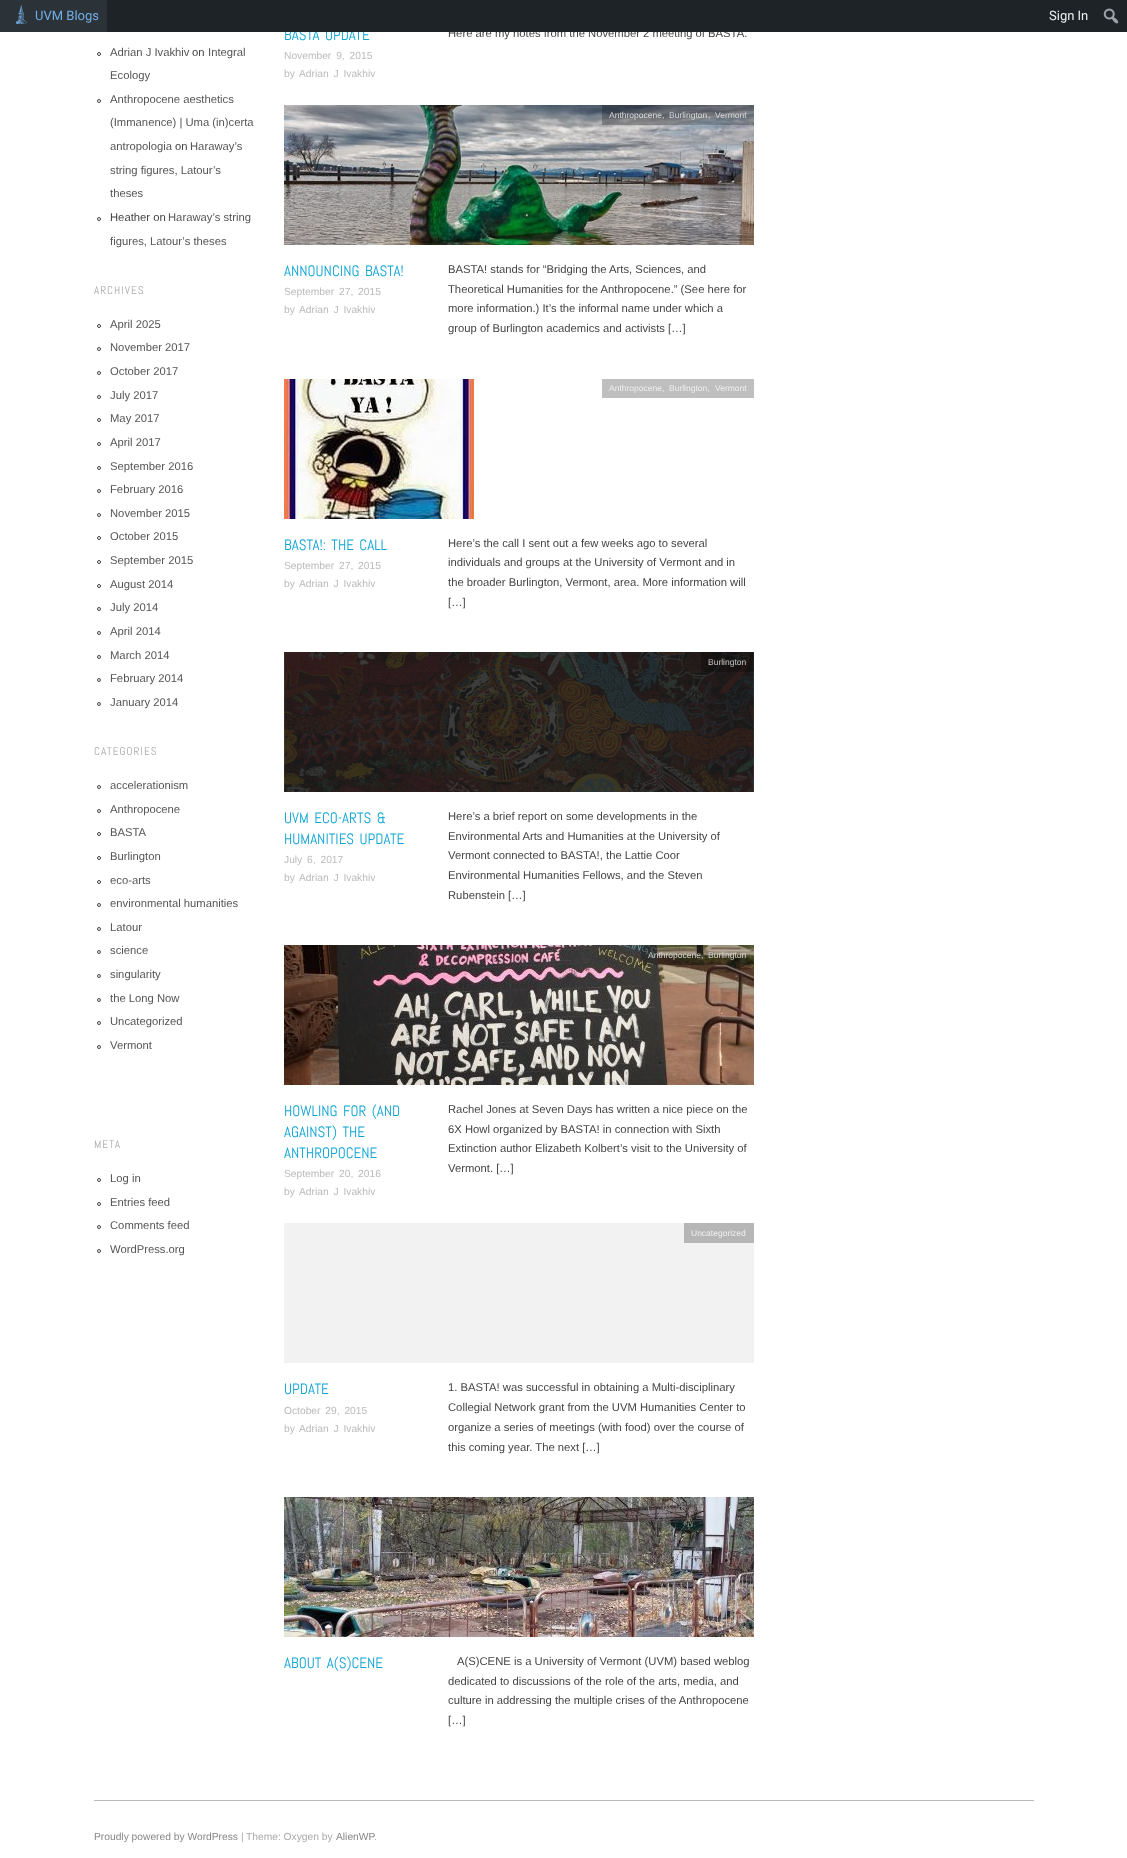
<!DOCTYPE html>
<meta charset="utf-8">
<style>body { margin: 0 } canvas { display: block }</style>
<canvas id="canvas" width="1127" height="1858"></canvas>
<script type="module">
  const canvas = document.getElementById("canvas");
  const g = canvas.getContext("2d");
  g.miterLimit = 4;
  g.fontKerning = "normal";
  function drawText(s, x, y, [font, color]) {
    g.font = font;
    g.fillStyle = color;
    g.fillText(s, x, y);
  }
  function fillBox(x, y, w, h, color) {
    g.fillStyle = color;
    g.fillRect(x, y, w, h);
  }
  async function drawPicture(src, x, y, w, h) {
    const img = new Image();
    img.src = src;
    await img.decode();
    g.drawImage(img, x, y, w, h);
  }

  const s1 = ["15px Abel", "#0DA4D3"];
  const s2 = ["11.25px Liberation Sans", "#444444"];
  const s3 = ["13px Roboto", "#72AEE6"];
  const s4 = ["13px Roboto", "#EFEFEF"];
  const s5 = ["11.25px Liberation Sans", "#555555"];
  const s6 = ["11.25px Abel", "#AAAAAA"];
  const s7 = ["10.25px Liberation Sans", "#BBBBBB"];
  const s8 = ["8.5px Liberation Sans", "#D8D9DA"];
  const s9 = ["8.5px Liberation Sans", "#DEDFE1"];
  const s10 = ["8.5px Liberation Sans", "#EFEFEF"];
  const s11 = ["8.5px Liberation Sans", "#C6C5C5"];
  const s12 = ["8.5px Liberation Sans", "#D5D3D0"];
  const s13 = ["8.5px Liberation Sans", "#D0D0C9"];
  const s14 = ["10.25px Liberation Sans", "#888888"];
  const s15 = ["10.25px Liberation Sans", "#AAAAAA"];

  fillBox(0, 0, 1127, 1858, "#FFFFFF");
  g.wordSpacing = "2px";
  drawText("BASTA UPDATE", 284, 40, s1);
  g.wordSpacing = "0px";
  drawText("Here are my notes from the November 2 meeting of BASTA.", 448, 37, s2);
  fillBox(107, 0, 1020, 32, "#1D2327");
  fillBox(0, 0, 107, 32, "#2C3338");
  await drawPicture("pic1.png", 15, 5, 12, 19);
  drawText("UVM Blogs", 35, 20, s3);
  drawText("Sign In", 1049, 20, s4);
  await drawPicture("pic2.png", 1103, 8, 16, 16);
  g.beginPath();
  g.arc(99, 54, 1.5, 0, Math.PI * 2);
  g.strokeStyle = "#444444";
  g.stroke();
  drawText("Adrian J Ivakhiv", 110, 56, s5);
  drawText("on", 192, 56, s2);
  drawText("Integral", 208, 56, s5);
  drawText("Ecology", 110, 79, s5);
  g.beginPath();
  g.arc(99, 101, 1.5, 0, Math.PI * 2);
  g.stroke();
  drawText("Anthropocene aesthetics", 110, 103, s5);
  drawText("(Immanence) | Uma (in)certa", 110, 126, s5);
  drawText("antropologia", 110, 150, s5);
  drawText("on", 175, 150, s2);
  drawText("Haraway’s", 190, 150, s5);
  drawText("string figures, Latour’s", 110, 174, s5);
  drawText("theses", 110, 197, s5);
  g.beginPath();
  g.arc(99, 219, 1.5, 0, Math.PI * 2);
  g.stroke();
  drawText("Heather on", 110, 221, s2);
  drawText("Haraway’s string", 168, 221, s5);
  drawText("figures, Latour’s theses", 110, 245, s5);
  g.letterSpacing = "1px";
  drawText("ARCHIVES", 94, 294, s6);
  g.beginPath();
  g.arc(99, 326, 1.5, 0, Math.PI * 2);
  g.stroke();
  g.letterSpacing = "0px";
  drawText("April 2025", 110, 328, s5);
  g.beginPath();
  g.arc(99, 349, 1.5, 0, Math.PI * 2);
  g.stroke();
  drawText("November 2017", 110, 351, s5);
  g.beginPath();
  g.arc(99, 373, 1.5, 0, Math.PI * 2);
  g.stroke();
  drawText("October 2017", 110, 375, s5);
  g.beginPath();
  g.arc(99, 397, 1.5, 0, Math.PI * 2);
  g.stroke();
  drawText("July 2017", 110, 399, s5);
  g.beginPath();
  g.arc(99, 420, 1.5, 0, Math.PI * 2);
  g.stroke();
  drawText("May 2017", 110, 422, s5);
  g.beginPath();
  g.arc(99, 444, 1.5, 0, Math.PI * 2);
  g.stroke();
  drawText("April 2017", 110, 446, s5);
  g.beginPath();
  g.arc(99, 468, 1.5, 0, Math.PI * 2);
  g.stroke();
  drawText("September 2016", 110, 470, s5);
  g.beginPath();
  g.arc(99, 491, 1.5, 0, Math.PI * 2);
  g.stroke();
  drawText("February 2016", 110, 493, s5);
  g.beginPath();
  g.arc(99, 515, 1.5, 0, Math.PI * 2);
  g.stroke();
  drawText("November 2015", 110, 517, s5);
  g.beginPath();
  g.arc(99, 538, 1.5, 0, Math.PI * 2);
  g.stroke();
  drawText("October 2015", 110, 540, s5);
  g.beginPath();
  g.arc(99, 562, 1.5, 0, Math.PI * 2);
  g.stroke();
  drawText("September 2015", 110, 564, s5);
  g.beginPath();
  g.arc(99, 586, 1.5, 0, Math.PI * 2);
  g.stroke();
  drawText("August 2014", 110, 588, s5);
  g.beginPath();
  g.arc(99, 609, 1.5, 0, Math.PI * 2);
  g.stroke();
  drawText("July 2014", 110, 611, s5);
  g.beginPath();
  g.arc(99, 633, 1.5, 0, Math.PI * 2);
  g.stroke();
  drawText("April 2014", 110, 635, s5);
  g.beginPath();
  g.arc(99, 657, 1.5, 0, Math.PI * 2);
  g.stroke();
  drawText("March 2014", 110, 659, s5);
  g.beginPath();
  g.arc(99, 680, 1.5, 0, Math.PI * 2);
  g.stroke();
  drawText("February 2014", 110, 682, s5);
  g.beginPath();
  g.arc(99, 704, 1.5, 0, Math.PI * 2);
  g.stroke();
  drawText("January 2014", 110, 706, s5);
  g.letterSpacing = "1px";
  drawText("CATEGORIES", 94, 755, s6);
  g.beginPath();
  g.arc(99, 787, 1.5, 0, Math.PI * 2);
  g.stroke();
  g.letterSpacing = "0px";
  drawText("accelerationism", 110, 789, s5);
  g.beginPath();
  g.arc(99, 811, 1.5, 0, Math.PI * 2);
  g.stroke();
  drawText("Anthropocene", 110, 813, s5);
  g.beginPath();
  g.arc(99, 834, 1.5, 0, Math.PI * 2);
  g.stroke();
  drawText("BASTA", 110, 836, s5);
  g.beginPath();
  g.arc(99, 858, 1.5, 0, Math.PI * 2);
  g.stroke();
  drawText("Burlington", 110, 860, s5);
  g.beginPath();
  g.arc(99, 882, 1.5, 0, Math.PI * 2);
  g.stroke();
  drawText("eco-arts", 110, 884, s5);
  g.beginPath();
  g.arc(99, 905, 1.5, 0, Math.PI * 2);
  g.stroke();
  drawText("environmental humanities", 110, 907, s5);
  g.beginPath();
  g.arc(99, 929, 1.5, 0, Math.PI * 2);
  g.stroke();
  drawText("Latour", 110, 931, s5);
  g.beginPath();
  g.arc(99, 952, 1.5, 0, Math.PI * 2);
  g.stroke();
  drawText("science", 110, 954, s5);
  g.beginPath();
  g.arc(99, 976, 1.5, 0, Math.PI * 2);
  g.stroke();
  drawText("singularity", 110, 978, s5);
  g.beginPath();
  g.arc(99, 1000, 1.5, 0, Math.PI * 2);
  g.stroke();
  drawText("the Long Now", 110, 1002, s5);
  g.beginPath();
  g.arc(99, 1023, 1.5, 0, Math.PI * 2);
  g.stroke();
  drawText("Uncategorized", 110, 1025, s5);
  g.beginPath();
  g.arc(99, 1047, 1.5, 0, Math.PI * 2);
  g.stroke();
  drawText("Vermont", 110, 1049, s5);
  g.letterSpacing = "1px";
  drawText("META", 94, 1148, s6);
  g.beginPath();
  g.arc(99, 1180, 1.5, 0, Math.PI * 2);
  g.stroke();
  g.letterSpacing = "0px";
  drawText("Log in", 110, 1182, s5);
  g.beginPath();
  g.arc(99, 1204, 1.5, 0, Math.PI * 2);
  g.stroke();
  drawText("Entries feed", 110, 1206, s5);
  g.beginPath();
  g.arc(99, 1227, 1.5, 0, Math.PI * 2);
  g.stroke();
  drawText("Comments feed", 110, 1229, s5);
  g.beginPath();
  g.arc(99, 1251, 1.5, 0, Math.PI * 2);
  g.stroke();
  drawText("WordPress.org", 110, 1253, s5);
  g.wordSpacing = "2px";
  drawText("November 9, 2015", 284, 59, s7);
  g.wordSpacing = "0px";
  drawText("by", 284, 77, s7);
  g.wordSpacing = "2px";
  drawText("Adrian J Ivakhiv", 299, 77, s7);
  await drawPicture("pic3.png", 284, 105, 470, 140);
  fillBox(602, 105, 152, 20, "rgba(0, 0, 0, 0.25)");
  g.wordSpacing = "0px";
  drawText("Anthropocene", 609, 118, s8);
  drawText(",", 662, 118, s8);
  drawText("Burlington", 669, 118, s8);
  drawText(",", 708, 118, s9);
  drawText("Vermont", 715, 118, s8);
  g.wordSpacing = "2px";
  drawText("ANNOUNCING BASTA!", 284, 276, s1);
  drawText("September 27, 2015", 284, 295, s7);
  g.wordSpacing = "0px";
  drawText("by", 284, 313, s7);
  g.wordSpacing = "2px";
  drawText("Adrian J Ivakhiv", 299, 313, s7);
  g.wordSpacing = "0px";
  drawText("BASTA! stands for “Bridging the Arts, Sciences, and", 448, 273, s2);
  drawText("Theoretical Humanities for the Anthropocene.” (See here for", 448, 293, s2);
  drawText("more information.) It’s the informal name under which a", 448, 312, s2);
  drawText("group of Burlington academics and activists […]", 448, 332, s2);
  await drawPicture("pic4.png", 284, 379, 190, 140);
  fillBox(602, 379, 152, 19, "#BFBFBF");
  drawText("Anthropocene,", 609, 391, s10);
  drawText("Burlington,", 669, 391, s10);
  drawText("Vermont", 715, 391, s10);
  g.wordSpacing = "2px";
  drawText("BASTA!: THE CALL", 284, 550, s1);
  drawText("September 27, 2015", 284, 569, s7);
  g.wordSpacing = "0px";
  drawText("by", 284, 587, s7);
  g.wordSpacing = "2px";
  drawText("Adrian J Ivakhiv", 299, 587, s7);
  g.wordSpacing = "0px";
  drawText("Here’s the call I sent out a few weeks ago to several", 448, 547, s2);
  drawText("individuals and groups at the University of Vermont and in", 448, 566, s2);
  drawText("the broader Burlington, Vermont, area. More information will", 448, 586, s2);
  drawText("[…]", 448, 606, s2);
  await drawPicture("pic5.png", 284, 652, 470, 140);
  fillBox(701, 652, 53, 20, "rgba(0, 0, 0, 0.25)");
  drawText("Burlington", 708, 665, s11);
  g.wordSpacing = "2px";
  drawText("UVM ECO-ARTS &", 284, 823, s1);
  drawText("HUMANITIES UPDATE", 284, 844, s1);
  drawText("July 6, 2017", 284, 863, s7);
  g.wordSpacing = "0px";
  drawText("by", 284, 881, s7);
  g.wordSpacing = "2px";
  drawText("Adrian J Ivakhiv", 299, 881, s7);
  g.wordSpacing = "0px";
  drawText("Here’s a brief report on some developments in the", 448, 820, s2);
  drawText("Environmental Arts and Humanities at the University of", 448, 840, s2);
  drawText("Vermont connected to BASTA!, the Lattie Coor", 448, 859, s2);
  drawText("Environmental Humanities Fellows, and the Steven", 448, 879, s2);
  drawText("Rubenstein […]", 448, 899, s2);
  await drawPicture("pic6.png", 284, 945, 470, 140);
  fillBox(641, 945, 113, 20, "rgba(0, 0, 0, 0.25)");
  drawText("Anthropocene", 648, 958, s12);
  drawText(",", 701, 958, s13);
  drawText("Burlington", 708, 958, s12);
  g.wordSpacing = "2px";
  drawText("HOWLING FOR (AND", 284, 1116, s1);
  drawText("AGAINST) THE", 284, 1137, s1);
  g.wordSpacing = "0px";
  drawText("ANTHROPOCENE", 284, 1158, s1);
  g.wordSpacing = "2px";
  drawText("September 20, 2016", 284, 1177, s7);
  g.wordSpacing = "0px";
  drawText("by", 284, 1195, s7);
  g.wordSpacing = "2px";
  drawText("Adrian J Ivakhiv", 299, 1195, s7);
  g.wordSpacing = "0px";
  drawText("Rachel Jones at Seven Days has written a nice piece on the", 448, 1113, s2);
  drawText("6X Howl organized by BASTA! in connection with Sixth", 448, 1133, s2);
  drawText("Extinction author Elizabeth Kolbert’s visit to the University of", 448, 1152, s2);
  drawText("Vermont. […]", 448, 1172, s2);
  fillBox(284, 1223, 470, 140, "#F2F2F2");
  fillBox(684, 1223, 70, 20, "#B6B6B6");
  drawText("Uncategorized", 691, 1236, s10);
  drawText("UPDATE", 284, 1394, s1);
  g.wordSpacing = "2px";
  drawText("October 29, 2015", 284, 1414, s7);
  g.wordSpacing = "0px";
  drawText("by", 284, 1432, s7);
  g.wordSpacing = "2px";
  drawText("Adrian J Ivakhiv", 299, 1432, s7);
  g.wordSpacing = "0px";
  drawText("1. BASTA! was successful in obtaining a Multi-disciplinary", 448, 1391, s2);
  drawText("Collegial Network grant from the UVM Humanities Center to", 448, 1411, s2);
  drawText("organize a series of meetings (with food) over the course of", 448, 1431, s2);
  drawText("this coming year. The next […]", 448, 1451, s2);
  await drawPicture("pic7.png", 284, 1497, 470, 140);
  g.wordSpacing = "2px";
  drawText("ABOUT A(S)CENE", 284, 1668, s1);
  g.wordSpacing = "0px";
  drawText("A(S)CENE is a University of Vermont (UVM) based weblog", 457, 1665, s2);
  drawText("dedicated to discussions of the role of the arts, media, and", 448, 1685, s2);
  drawText("culture in addressing the multiple crises of the Anthropocene", 448, 1704, s2);
  drawText("[…]", 448, 1724, s2);
  fillBox(94, 1800, 940, 1, "#BBBBBB");
  drawText("Proudly powered by WordPress", 94, 1840, s14);
  drawText("|", 241, 1840, s15);
  drawText("Theme: Oxygen by", 246, 1840, s15);
  drawText("AlienWP", 336, 1840, s14);
  drawText(".", 374, 1840, s15);
</script>
